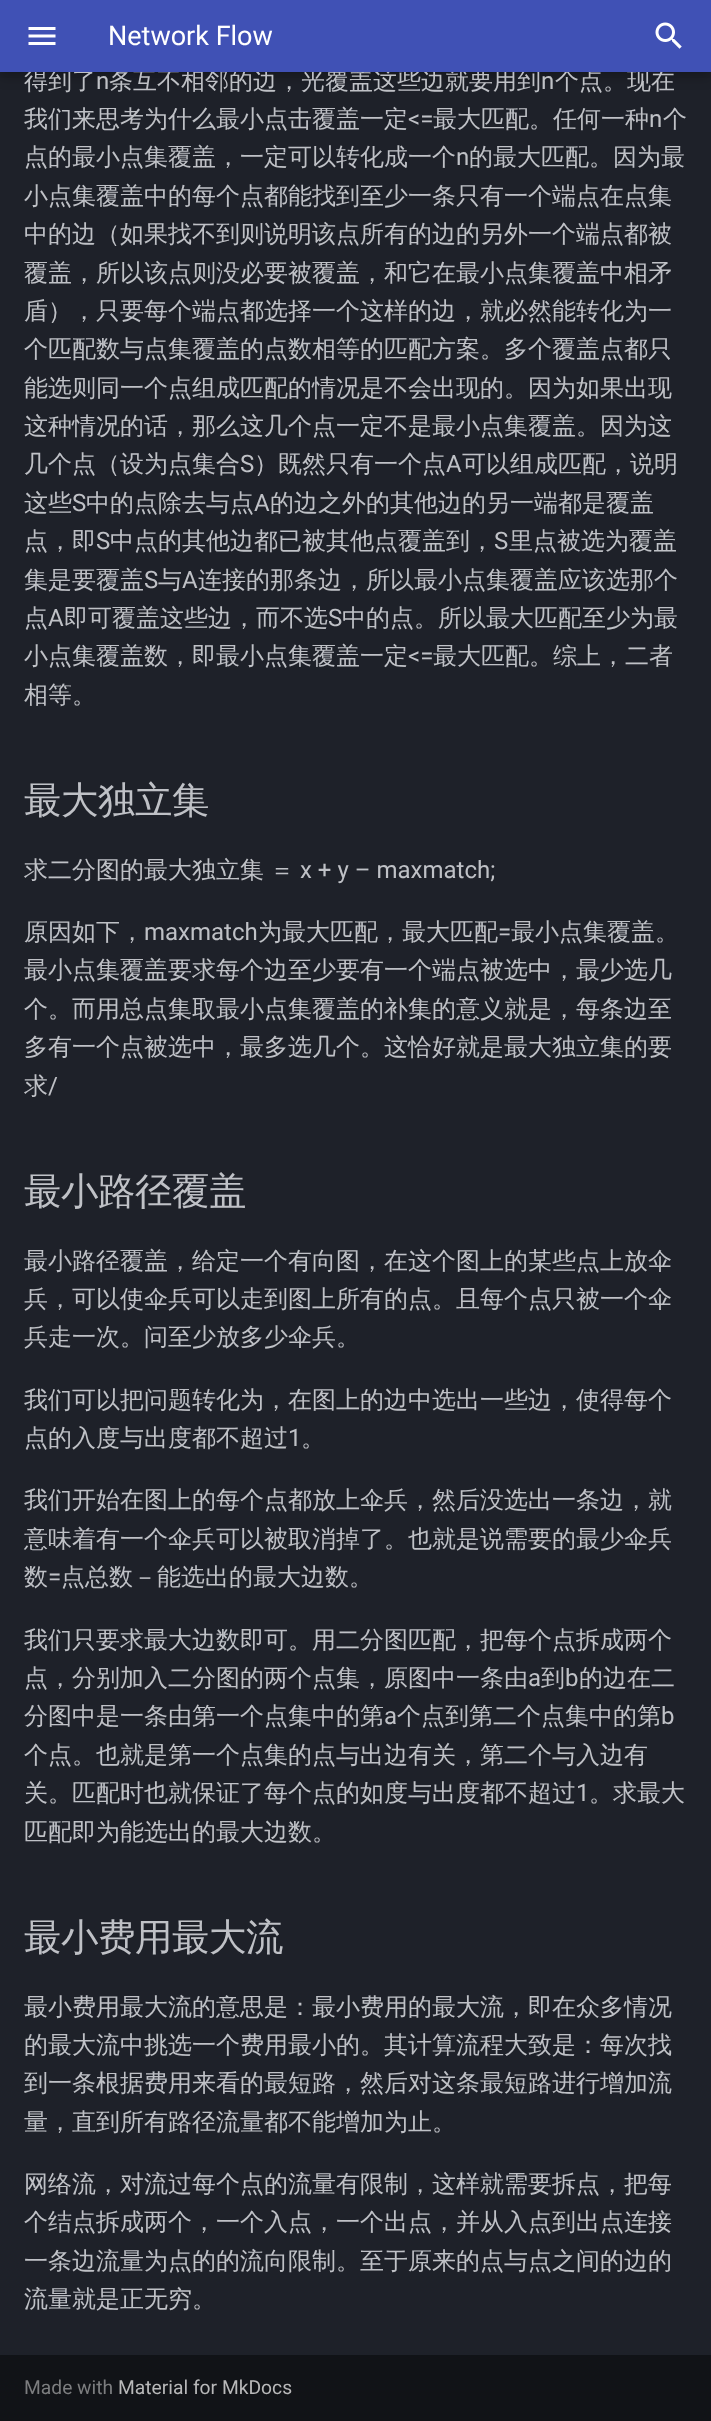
<!DOCTYPE html>
<meta charset="utf-8">
<style>body { margin: 0 } canvas { display: block }</style>
<canvas id="canvas" width="711" height="2421"></canvas>
<script type="module">
  const canvas = document.getElementById("canvas");
  const g = canvas.getContext("2d");
  g.miterLimit = 4;
  g.fontKerning = "normal";
  function drawText(s, x, y, [font, color]) {
    g.font = font;
    g.fillStyle = color;
    g.fillText(s, x, y);
  }
  function fillBox(x, y, w, h, color) {
    g.fillStyle = color;
    g.fillRect(x, y, w, h);
  }
  async function drawPicture(src, x, y, w, h) {
    const img = new Image();
    img.src = src;
    await img.decode();
    g.drawImage(img, x, y, w, h);
  }

  const s1 = ["500 24px WenQuanYi Zen Hei", "#BFC1C6"];
  const s2 = ["27px Roboto", "#FFFFFF"];
  const s3 = ["24px Roboto", "#BFC1C6"];
  const s4 = ["500 37.5px WenQuanYi Zen Hei", "#BFC1C6"];
  const s5 = ["19.25px Roboto", "#7C7D7F"];
  const s6 = ["19.25px Roboto", "#B8B8B9"];

  fillBox(0, 0, 711, 2421, "#1E2129");
  g.fillStyle = "rgba(0, 0, 0, 0.2)";
  g.filter = "blur(6px)";
  g.beginPath();
  g.rect(0, 6, 711, 72);
  g.fill();
  g.filter = "none";
  g.fillStyle = "rgba(0, 0, 0, 0.1)";
  g.filter = "blur(3px)";
  g.beginPath();
  g.rect(0, 0, 711, 72);
  g.fill();
  g.filter = "none";
  drawText("得到了", 24, 89, s1);
  drawText("条互不相邻的边，光覆盖这些边就要用到", 109, 89, s1);
  drawText("个点。现在", 555, 89, s1);
  fillBox(0, 0, 711, 72, "#4051B5");
  await drawPicture("pic1.png", 28, 27, 28, 18);
  drawText("Network Flow", 108, 45, s2);
  await drawPicture("pic2.png", 655, 22, 27, 27);
  drawText("n", 96, 89, s3);
  drawText("n", 541, 89, s3);
  drawText("我们来思考为什么最小点击覆盖一定", 24, 127, s1);
  drawText("<=", 408, 127, s3);
  drawText("最大匹配。任何一种", 433, 127, s1);
  drawText("n", 649, 127, s3);
  drawText("个", 663, 127, s1);
  drawText("点的最小点集覆盖，一定可以转化成一个", 24, 165, s1);
  drawText("n", 456, 165, s3);
  drawText("的最大匹配。因为最", 469, 165, s1);
  drawText("小点集覆盖中的每个点都能找到至少一条只有一个端点在点集", 24, 204, s1);
  drawText("中的边（如果找不到则说明该点所有的边的另外一个端点都被", 24, 242, s1);
  drawText("覆盖，所以该点则没必要被覆盖，和它在最小点集覆盖中相矛", 24, 281, s1);
  drawText("盾），只要每个端点都选择一个这样的边，就必然能转化为一", 24, 319, s1);
  drawText("个匹配数与点集覆盖的点数相等的匹配方案。多个覆盖点都只", 24, 357, s1);
  drawText("能选则同一个点组成匹配的情况是不会出现的。因为如果出现", 24, 396, s1);
  drawText("这种情况的话，那么这几个点一定不是最小点集覆盖。因为这", 24, 434, s1);
  drawText("几个点（设为点集合", 24, 472, s1);
  drawText("S", 240, 472, s3);
  drawText("）既然只有一个点", 254, 472, s1);
  drawText("A", 446, 472, s3);
  drawText("可以组成匹配，说明", 462, 472, s1);
  drawText("这些", 24, 511, s1);
  drawText("S", 72, 511, s3);
  drawText("中的点除去与点", 86, 511, s1);
  drawText("A", 254, 511, s3);
  drawText("的边之外的其他边的另一端都是覆盖", 270, 511, s1);
  drawText("点，即", 24, 549, s1);
  drawText("S", 96, 549, s3);
  drawText("中点的其他边都已被其他点覆盖到，", 110, 549, s1);
  drawText("S", 494, 549, s3);
  drawText("里点被选为覆盖", 509, 549, s1);
  drawText("集是要覆盖", 24, 588, s1);
  drawText("S", 144, 588, s3);
  drawText("与", 158, 588, s1);
  drawText("A", 182, 588, s3);
  drawText("连接的那条边，所以最小点集覆盖应该选那个", 198, 588, s1);
  drawText("点", 24, 626, s1);
  drawText("A", 48, 626, s3);
  drawText("即可覆盖这些边，而不选", 64, 626, s1);
  drawText("S", 328, 626, s3);
  drawText("中的点。所以最大匹配至少为最", 342, 626, s1);
  drawText("小点集覆盖数，即最小点集覆盖一定", 24, 664, s1);
  drawText("<=", 408, 664, s3);
  drawText("最大匹配。综上，二者", 433, 664, s1);
  drawText("相等。", 24, 703, s1);
  g.letterSpacing = "-0.5px";
  drawText("最大独立集", 24, 813, s4);
  g.letterSpacing = "0px";
  drawText("求二分图的最大独立集", 24, 878, s1);
  drawText("＝", 270, 878, s1);
  drawText("x + y – maxmatch;", 300, 878, s3);
  drawText("原因如下，", 24, 940, s1);
  drawText("maxmatch", 144, 940, s3);
  drawText("为最大匹配，最大匹配", 258, 940, s1);
  drawText("=", 498, 940, s3);
  drawText("最小点集覆盖。", 511, 940, s1);
  drawText("最小点集覆盖要求每个边至少要有一个端点被选中，最少选几", 24, 978, s1);
  drawText("个。而用总点集取最小点集覆盖的补集的意义就是，每条边至", 24, 1017, s1);
  drawText("多有一个点被选中，最多选几个。这恰好就是最大独立集的要", 24, 1055, s1);
  drawText("求", 24, 1094, s1);
  drawText("/", 48, 1094, s3);
  g.letterSpacing = "-0.5px";
  drawText("最小路径覆盖", 24, 1204, s4);
  g.letterSpacing = "0px";
  drawText("最小路径覆盖，给定一个有向图，在这个图上的某些点上放伞", 24, 1269, s1);
  drawText("兵，可以使伞兵可以走到图上所有的点。且每个点只被一个伞", 24, 1307, s1);
  drawText("兵走一次。问至少放多少伞兵。", 24, 1345, s1);
  drawText("我们可以把问题转化为，在图上的边中选出一些边，使得每个", 24, 1408, s1);
  drawText("点的入度与出度都不超过", 24, 1446, s1);
  drawText("1", 288, 1446, s3);
  drawText("。", 301, 1446, s1);
  drawText("我们开始在图上的每个点都放上伞兵，然后没选出一条边，就", 24, 1508, s1);
  drawText("意味着有一个伞兵可以被取消掉了。也就是说需要的最少伞兵", 24, 1547, s1);
  drawText("数", 24, 1585, s1);
  drawText("=", 48, 1585, s3);
  drawText("点总数－能选出的最大边数。", 61, 1585, s1);
  drawText("我们只要求最大边数即可。用二分图匹配，把每个点拆成两个", 24, 1648, s1);
  drawText("点，分别加入二分图的两个点集，原图中一条由", 24, 1686, s1);
  drawText("a", 528, 1686, s3);
  drawText("到", 541, 1686, s1);
  drawText("b", 565, 1686, s3);
  drawText("的边在二", 579, 1686, s1);
  drawText("分图中是一条由第一个点集中的第", 24, 1724, s1);
  drawText("a", 384, 1724, s3);
  drawText("个点到第二个点集中的第", 397, 1724, s1);
  drawText("b", 661, 1724, s3);
  drawText("个点。也就是第一个点集的点与出边有关，第二个与入边有", 24, 1763, s1);
  drawText("关。匹配时也就保证了每个点的如度与出度都不超过", 24, 1801, s1);
  drawText("1", 576, 1801, s3);
  drawText("。求最大", 589, 1801, s1);
  drawText("匹配即为能选出的最大边数。", 24, 1840, s1);
  g.letterSpacing = "-0.5px";
  drawText("最小费用最大流", 24, 1950, s4);
  g.letterSpacing = "0px";
  drawText("最小费用最大流的意思是：最小费用的最大流，即在众多情况", 24, 2015, s1);
  drawText("的最大流中挑选一个费用最小的。其计算流程大致是：每次找", 24, 2053, s1);
  drawText("到一条根据费用来看的最短路，然后对这条最短路进行增加流", 24, 2091, s1);
  drawText("量，直到所有路径流量都不能增加为止。", 24, 2130, s1);
  drawText("网络流，对流过每个点的流量有限制，这样就需要拆点，把每", 24, 2192, s1);
  drawText("个结点拆成两个，一个入点，一个出点，并从入点到出点连接", 24, 2230, s1);
  drawText("一条边流量为点的的流向限制。至于原来的点与点之间的边的", 24, 2269, s1);
  drawText("流量就是正无穷。", 24, 2307, s1);
  fillBox(0, 2355, 711, 66, "#111317");
  drawText("Made with", 24, 2394, s5);
  drawText("Material for MkDocs", 118, 2394, s6);
</script>
